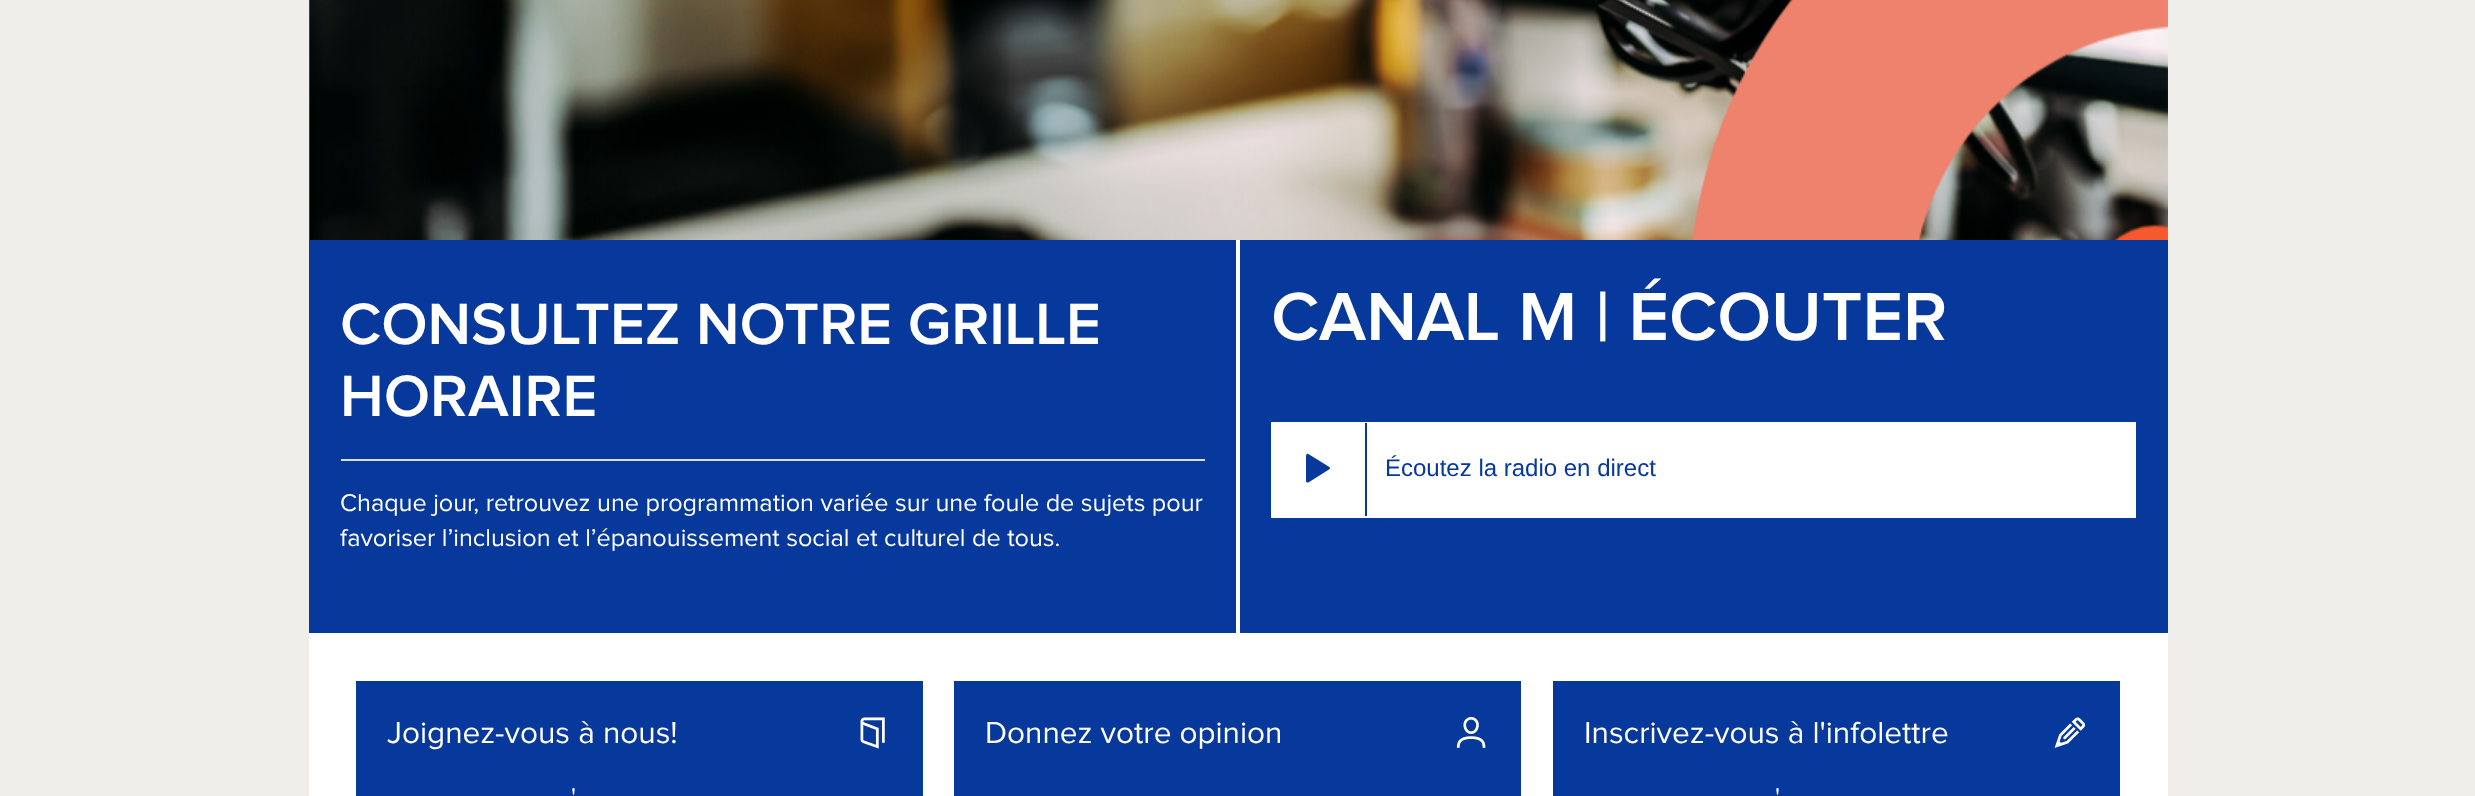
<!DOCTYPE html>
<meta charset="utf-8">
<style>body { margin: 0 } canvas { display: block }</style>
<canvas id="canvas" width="2475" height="796"></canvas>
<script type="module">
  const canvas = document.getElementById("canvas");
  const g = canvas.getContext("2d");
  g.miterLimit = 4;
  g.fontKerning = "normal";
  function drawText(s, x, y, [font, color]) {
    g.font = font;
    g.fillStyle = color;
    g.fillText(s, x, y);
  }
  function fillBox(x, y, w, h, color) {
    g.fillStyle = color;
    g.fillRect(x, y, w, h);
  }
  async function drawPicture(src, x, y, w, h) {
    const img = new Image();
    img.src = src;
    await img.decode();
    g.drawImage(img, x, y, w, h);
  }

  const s1 = ["600 60.5px Proxima Nova", "#FFFFFF"];
  const s2 = ["25.2px Proxima Nova", "#FFFFFF"];
  const s3 = ["600 70.5px Proxima Nova", "#FFFFFF"];
  const s4 = ["48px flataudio", "#07389B"];
  const s5 = ["24px Liberation Sans", "#07389B"];
  const s6 = ["31.5px Proxima Nova", "#FFFFFF"];

  fillBox(0, 0, 2475, 796, "#EFEEEA");
  await drawPicture("pic1.png", 309, 0, 1859, 240);
  fillBox(309, 240, 927, 393, "#07389B");
  fillBox(1236, 240, 4, 393, "#FFFFFF");
  drawText("CONSULTEZ NOTRE GRILLE", 340, 344, s1);
  drawText("HORAIRE", 340, 416, s1);
  fillBox(341, 459, 864, 2, "#DDDDDD");
  drawText("Chaque jour, retrouvez une programmation variée sur une foule de sujets pour", 340, 511, s2);
  drawText("favoriser l’inclusion et l’épanouissement social et culturel de tous.", 340, 546, s2);
  fillBox(1240, 240, 928, 393, "#07389B");
  drawText("CANAL M | ÉCOUTER", 1271, 340, s3);
  fillBox(1271, 422, 865, 96, "#FFFFFF");
  fillBox(1365, 423, 2, 93, "#07389B");
  drawText("▶", 1306, 485, s4);
  drawText("Écoutez la radio en direct", 1385, 476, s5);
  fillBox(309, 633, 1859, 163, "#FFFFFF");
  fillBox(356, 681, 567, 115, "#07389B");
  drawText("Joignez-vous à nous!", 387, 743, s6);
  await drawPicture("pic2.png", 860, 717, 25, 32);
  drawText("'", 571, 805, s2);
  fillBox(954, 681, 567, 115, "#07389B");
  drawText("Donnez votre opinion", 985, 743, s6);
  await drawPicture("pic3.png", 1456, 716, 30, 32);
  fillBox(1553, 681, 567, 115, "#07389B");
  drawText("Inscrivez-vous à l'infolettre", 1584, 743, s6);
  await drawPicture("pic4.png", 2054, 717, 31, 31);
  drawText("'", 1775, 805, s2);
</script>
